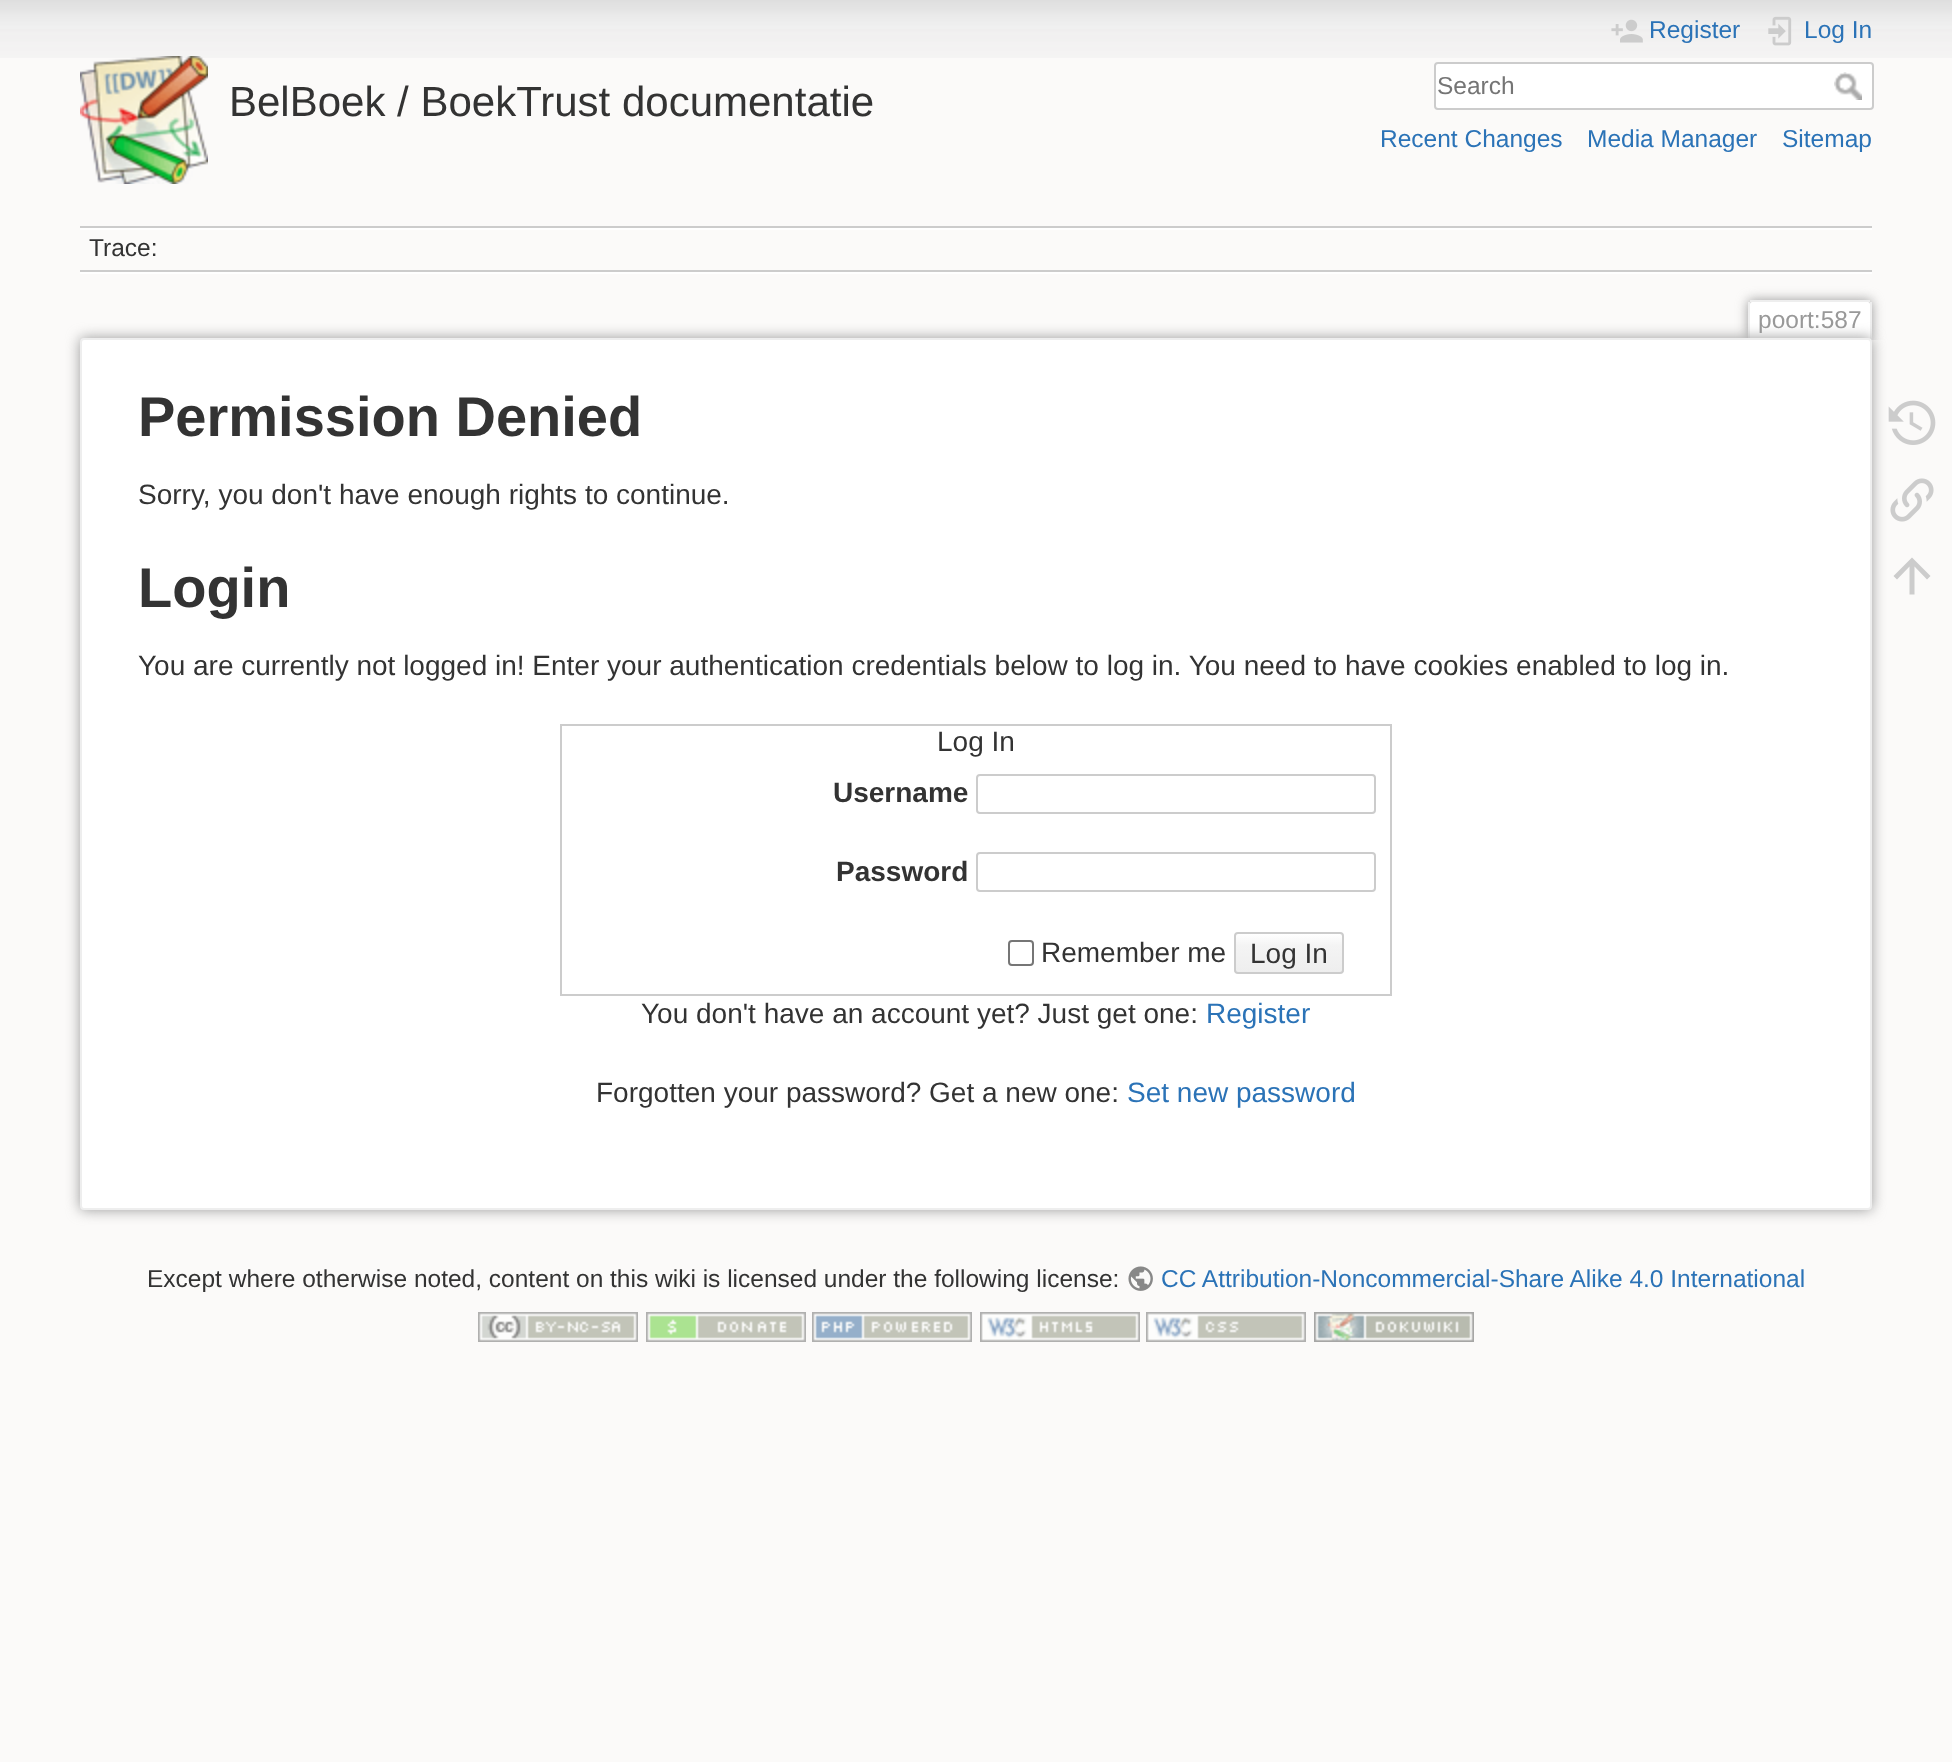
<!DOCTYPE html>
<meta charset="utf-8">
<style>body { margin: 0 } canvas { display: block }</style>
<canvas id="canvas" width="1952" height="1762"></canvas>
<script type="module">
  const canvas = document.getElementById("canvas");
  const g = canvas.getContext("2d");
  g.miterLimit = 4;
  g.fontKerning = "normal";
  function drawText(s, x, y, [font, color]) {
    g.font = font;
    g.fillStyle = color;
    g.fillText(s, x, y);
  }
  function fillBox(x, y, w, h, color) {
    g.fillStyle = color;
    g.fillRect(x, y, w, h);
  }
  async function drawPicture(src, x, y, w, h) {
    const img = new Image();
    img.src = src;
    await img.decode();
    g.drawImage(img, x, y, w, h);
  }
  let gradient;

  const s1 = ["42px Liberation Sans", "#333333"];
  const s2 = ["24.5px Liberation Sans", "#2B73B7"];
  const s3 = ["24.5px Liberation Sans", "#757575"];
  const s4 = ["24.5px Liberation Sans", "#333333"];
  const s5 = ["24.5px Liberation Sans", "#999999"];
  const s6 = ["bold 56px Liberation Sans", "#333333"];
  const s7 = ["28px Liberation Sans", "#333333"];
  const s8 = ["bold 28px Liberation Sans", "#333333"];
  const s9 = ["28px Liberation Sans", "#2B73B7"];

  fillBox(0, 0, 1952, 1762, "#FBFAF9");
  await drawPicture("pic1.png", 0, 0, 1952, 58);
  await drawPicture("pic2.png", 80, 56, 128, 128);
  drawText("BelBoek / BoekTrust documentatie", 229, 116, s1);
  await drawPicture("pic3.png", 1611, 19, 32, 24);
  drawText("Register", 1649, 38, s2);
  await drawPicture("pic4.png", 1768, 16, 24, 30);
  drawText("Log In", 1804, 38, s2);
  g.fillStyle = "#FFFFFF";
  g.beginPath();
  g.roundRect(1435, 63, 438, 46, 3);
  g.fill();
  g.strokeStyle = "#CCCCCC";
  g.lineWidth = 2;
  g.stroke();
  drawText("Search", 1437, 94, s3);
  await drawPicture("pic5.png", 1834, 72, 28, 28);
  drawText("Recent Changes", 1380, 147, s2);
  drawText("Media Manager", 1587, 147, s2);
  drawText("Sitemap", 1782, 147, s2);
  fillBox(80, 226, 1792, 2, "#CCCCCC");
  fillBox(80, 272, 1792, 2, "#FFFFFF");
  fillBox(80, 228, 1792, 2, "#FFFFFF");
  fillBox(80, 270, 1792, 2, "#CCCCCC");
  drawText("Trace:", 89, 256, s4);
  g.save();
  g.beginPath();
  g.rect(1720, 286, 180, 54);
  g.clip();
  g.fillStyle = "#999999";
  g.filter = "blur(6px)";
  g.beginPath();
  g.roundRect(1748, 300, 124, 40, 4);
  g.fill();
  g.filter = "none";
  g.restore();
  g.fillStyle = "#FFFFFF";
  g.beginPath();
  g.roundRect(1750, 302, 120, 38, [2, 2, 0, 0]);
  g.fill();
  fillBox(1750, 300, 120, 2, "#EEEEEE");
  fillBox(1870, 302, 2, 38, "#EEEEEE");
  fillBox(1748, 302, 2, 38, "#EEEEEE");
  drawText("poort:587", 1758, 328, s5);
  g.filter = "blur(7px)";
  g.beginPath();
  g.roundRect(80, 338, 1792, 872, 4);
  g.fill();
  g.filter = "none";
  g.fillStyle = "#FFFFFF";
  g.beginPath();
  g.roundRect(81, 339, 1790, 870, 3);
  g.fill();
  g.strokeStyle = "#EEEEEE";
  g.stroke();
  drawText("Permission Denied", 138, 436, s6);
  drawText("Sorry, you don't have enough rights to continue.", 138, 504, s7);
  drawText("Login", 138, 607, s6);
  drawText("You are currently not logged in! Enter your authentication credentials below to log in. You need to have cookies enabled to log in.", 138, 675, s7);
  g.strokeStyle = "#CCCCCC";
  g.strokeRect(561, 725, 830, 270);
  drawText("Log In", 937, 751, s7);
  drawText("Username", 833, 802, s8);
  g.beginPath();
  g.roundRect(977, 775, 398, 38, 3);
  g.stroke();
  drawText("Password", 836, 881, s8);
  g.beginPath();
  g.roundRect(977, 853, 398, 38, 3);
  g.stroke();
  g.beginPath();
  g.roundRect(1009, 941, 24, 24, 3);
  g.strokeStyle = "#767676";
  g.stroke();
  drawText("Remember me", 1041, 962, s7);
  g.save();
  g.beginPath();
  g.roundRect(1234, 932, 110, 42, 4);
  g.clip();
  gradient = g.createLinearGradient(1289, 934, 1289, 972);
  gradient.addColorStop(0, "#FFFFFF");
  gradient.addColorStop(0.3, "#F4F4F4");
  gradient.addColorStop(0.99, "#EEEEEE");
  gradient.addColorStop(0.99, "#CCCCCC");
  g.fillStyle = gradient;
  g.fillRect(1234, 934, 110, 38);
  g.restore();
  g.beginPath();
  g.roundRect(1235, 933, 108, 40, 3);
  g.strokeStyle = "#CCCCCC";
  g.stroke();
  drawText("Log In", 1250, 963, s7);
  drawText("You don't have an account yet? Just get one:", 641, 1023, s7);
  drawText("Register", 1206, 1023, s9);
  drawText("Forgotten your password? Get a new one:", 596, 1102, s7);
  drawText("Set new password", 1127, 1102, s9);
  await drawPicture("pic6.png", 1888, 400, 48, 45);
  await drawPicture("pic7.png", 1890, 478, 44, 44);
  g.fillStyle = "#CCCCCC";
  g.beginPath();
  g.moveTo(1914.5, 594.5);
  g.lineTo(1909.5, 594.5);
  g.lineTo(1909.5, 566.5);
  g.lineTo(1897, 579.5);
  g.lineTo(1893.5, 576);
  g.lineTo(1912, 557.5);
  g.lineTo(1930.5, 576);
  g.lineTo(1927, 579.5);
  g.lineTo(1914.5, 566.5);
  g.closePath();
  g.fill();
  drawText("Except where otherwise noted, content on this wiki is licensed under the following license:", 147, 1287, s4);
  await drawPicture("pic8.png", 1128, 1266, 25, 25);
  drawText("CC Attribution-Noncommercial-Share Alike 4.0 International", 1161, 1287, s2);
  await drawPicture("pic9.png", 478, 1312, 160, 30);
  await drawPicture("pic10.png", 646, 1312, 160, 30);
  await drawPicture("pic11.png", 812, 1312, 160, 30);
  await drawPicture("pic12.png", 980, 1312, 160, 30);
  await drawPicture("pic13.png", 1146, 1312, 160, 30);
  await drawPicture("pic14.png", 1314, 1312, 160, 30);
</script>
